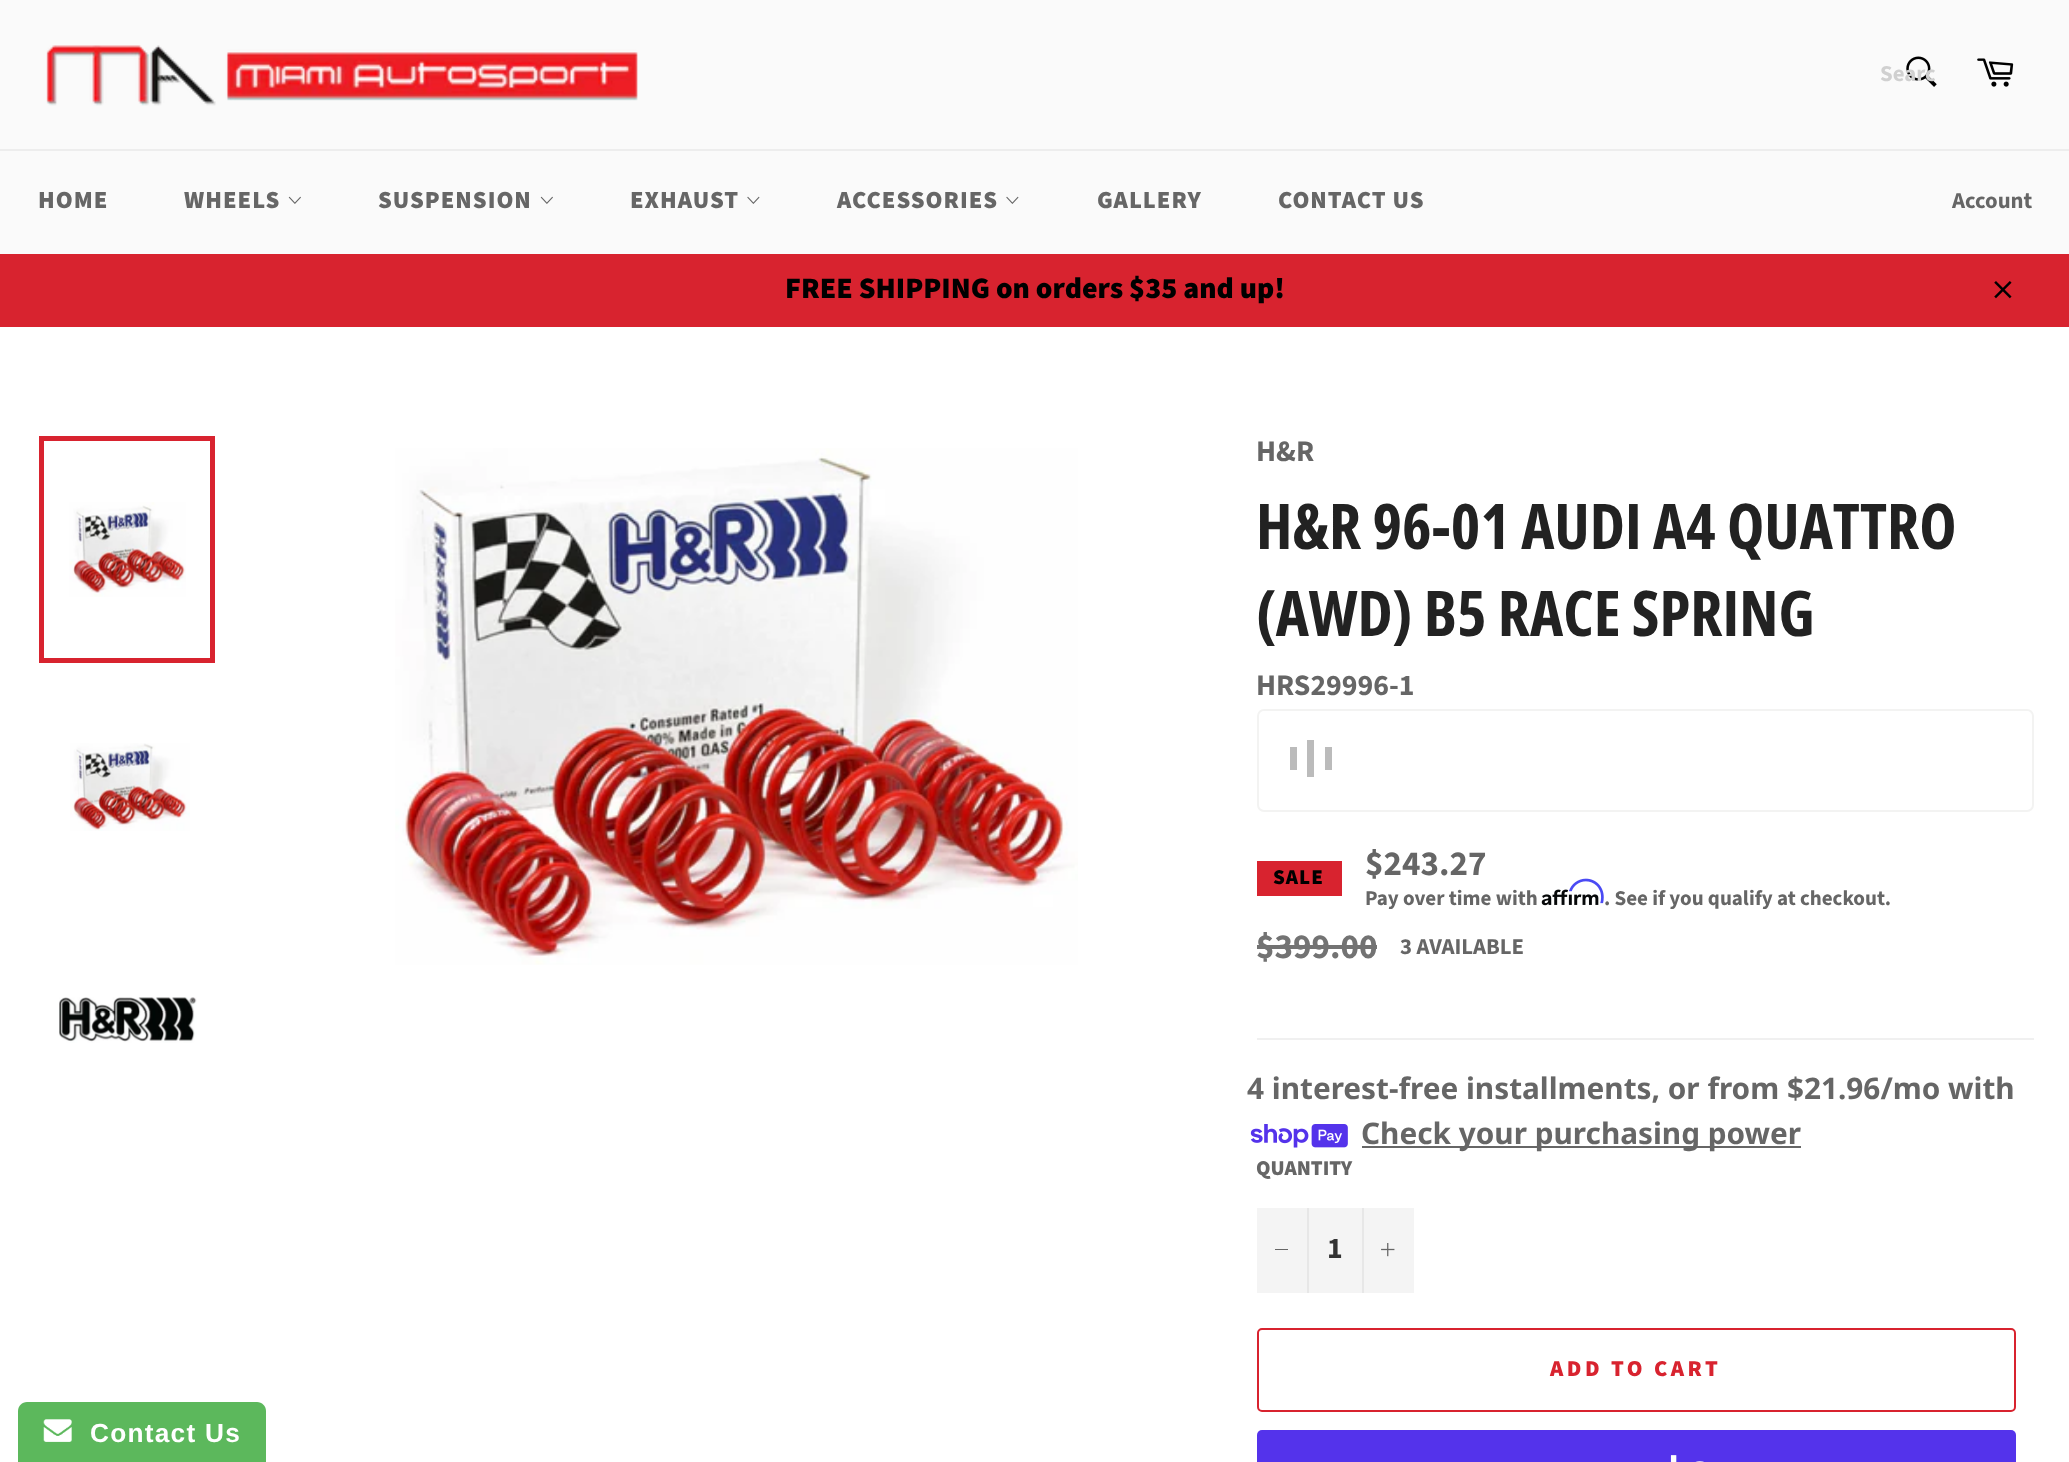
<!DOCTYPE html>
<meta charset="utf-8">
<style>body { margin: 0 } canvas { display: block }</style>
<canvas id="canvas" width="2069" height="1462"></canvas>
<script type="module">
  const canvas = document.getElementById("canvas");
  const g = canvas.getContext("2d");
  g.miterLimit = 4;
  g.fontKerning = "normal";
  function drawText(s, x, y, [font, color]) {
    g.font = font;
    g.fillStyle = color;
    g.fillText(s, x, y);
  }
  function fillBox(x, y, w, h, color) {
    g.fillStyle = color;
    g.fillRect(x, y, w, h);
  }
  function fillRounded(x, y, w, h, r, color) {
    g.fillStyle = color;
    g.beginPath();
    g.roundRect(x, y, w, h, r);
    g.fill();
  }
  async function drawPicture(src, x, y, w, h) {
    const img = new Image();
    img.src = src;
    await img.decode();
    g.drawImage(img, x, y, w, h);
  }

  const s1 = ["bold 22.75px Source Sans Pro", "#D0D0D0"];
  const s2 = ["900 24.5px Source Sans Pro", "#666666"];
  const s3 = ["bold 22.75px Source Sans Pro", "#666666"];
  const s4 = ["900 29.75px Source Sans Pro", "#000000"];
  const s5 = ["bold 29.75px Source Sans Pro", "#666666"];
  const s6 = ["bold 63px Open Sans Condensed", "#222222"];
  const s7 = ["900 21px Source Sans Pro", "#000000"];
  const s8 = ["bold 35px Source Sans Pro", "#666666"];
  const s9 = ["bold 21px Source Sans Pro", "#666666"];
  const s10 = ["bold 35px Source Sans Pro", "#737373"];
  const s11 = ["bold 29.75px Noto Sans", "#666666"];
  const s12 = ["900 21px Source Sans Pro", "#666666"];
  const s13 = ["bold 29.75px Source Sans Pro", "#333333"];
  const s14 = ["900 22.75px Source Sans Pro", "#D8232F"];
  const s15 = ["bold 26.25px Liberation Sans", "#FFFFFF"];

  fillBox(0, 0, 2069, 1462, "#FAFAFA");
  await drawPicture("pic1.png", 46, 45, 592, 61);
  await drawPicture("pic2.png", 1906, 56, 31, 31);
  drawText("Searc", 1880, 81, s1);
  await drawPicture("pic3.png", 1977, 58, 37, 29);
  fillBox(0, 149, 2069, 2, "#EDEDED");
  g.letterSpacing = "1px";
  drawText("HOME", 38, 208, s2);
  drawText("WHEELS", 184, 208, s2);
  await drawPicture("pic4.png", 288, 196, 13, 8);
  drawText("SUSPENSION", 378, 208, s2);
  await drawPicture("pic4.png", 540, 196, 13, 8);
  drawText("EXHAUST", 630, 208, s2);
  await drawPicture("pic5.png", 747, 196, 13, 8);
  drawText("ACCESSORIES", 837, 208, s2);
  await drawPicture("pic5.png", 1006, 196, 13, 8);
  drawText("GALLERY", 1097, 208, s2);
  drawText("CONTACT US", 1278, 208, s2);
  g.letterSpacing = "0px";
  drawText("Account", 1952, 208, s3);
  fillBox(0, 254, 2069, 73, "#D8232F");
  drawText("FREE SHIPPING on orders $35 and up!", 785, 298, s4);
  await drawPicture("pic6.png", 1994, 281, 18, 18);
  fillBox(0, 327, 2069, 1135, "#FFFFFF");
  await drawPicture("pic7.png", 69, 502, 117, 95);
  g.strokeStyle = "#D8232F";
  g.lineWidth = 5;
  g.strokeRect(41.5, 438.5, 171, 222);
  await drawPicture("pic8.png", 70, 743, 120, 88);
  await drawPicture("pic9.png", 59, 997, 138, 46);
  await drawPicture("pic10.png", 395, 448, 683, 517);
  drawText("H&R", 1256, 461, s5);
  drawText("H&R 96-01 AUDI A4 QUATTRO", 1256, 549, s6);
  drawText("(AWD) B5 RACE SPRING", 1256, 636, s6);
  drawText("HRS29996-1", 1256, 695, s5);
  g.beginPath();
  g.roundRect(1258, 710, 775, 101, 6);
  g.strokeStyle = "#F3F3F2";
  g.lineWidth = 2;
  g.stroke();
  fillBox(1290, 747, 7, 23, "#BBBBBB");
  fillBox(1307, 740, 7, 37, "#BBBBBB");
  fillBox(1325, 747, 7, 23, "#BBBBBB");
  fillBox(1257, 861, 85, 35, "#D8232F");
  g.letterSpacing = "1px";
  drawText("SALE", 1273, 884, s7);
  g.letterSpacing = "0px";
  drawText("$243.27", 1365, 875, s8);
  drawText("Pay over time with", 1365, 905, s9);
  await drawPicture("pic12.png", 1541, 889, 58, 17);
  await drawPicture("pic11.png", 1569, 878, 35, 26);
  drawText(". See if you qualify at checkout.", 1604, 905, s9);
  drawText("$399.00", 1256, 958, s10);
  fillBox(1257, 945, 120, 4, "#737373");
  drawText("3 AVAILABLE", 1400, 954, s3);
  fillBox(1257, 1038, 777, 2, "#F0F0F0");
  drawText("4 interest-free installments, or from $21.96/mo with", 1247, 1099, s11);
  await drawPicture("pic13.png", 1250, 1124, 98, 24);
  fillBox(1362, 1146, 439, 2, "#666666");
  drawText("Check your purchasing power", 1361, 1144, s11);
  drawText("QUANTITY", 1256, 1175, s12);
  fillBox(1257, 1208, 157, 85, "#F4F4F4");
  fillBox(1307, 1208, 2, 85, "#E7E7E7");
  fillBox(1275, 1249, 13, 1, "#666666");
  drawText("1", 1327, 1258, s13);
  fillBox(1362, 1208, 2, 85, "#E7E7E7");
  await drawPicture("pic14.png", 1381, 1243, 14, 14);
  g.beginPath();
  g.roundRect(1258, 1329, 757, 82, 4);
  g.strokeStyle = "#D8232F";
  g.stroke();
  g.letterSpacing = "3.5px";
  drawText("ADD TO CART", 1550, 1376, s14);
  fillRounded(1257, 1430, 759, 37, 5, "#5433EB");
  await drawPicture("pic15.png", 1670, 1455, 34, 7);
  g.fillStyle = "#5CB85C";
  g.beginPath();
  g.moveTo(27, 1402);
  g.lineTo(257, 1402);
  g.bezierCurveTo(262, 1402, 266, 1406, 266, 1411);
  g.lineTo(266, 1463);
  g.lineTo(18, 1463);
  g.lineTo(18, 1411);
  g.bezierCurveTo(18, 1406, 22, 1402, 27, 1402);
  g.closePath();
  g.fill();
  await drawPicture("pic16.png", 43, 1419, 29, 23);
  g.letterSpacing = "1.25px";
  drawText("Contact Us", 90, 1442, s15);
</script>
